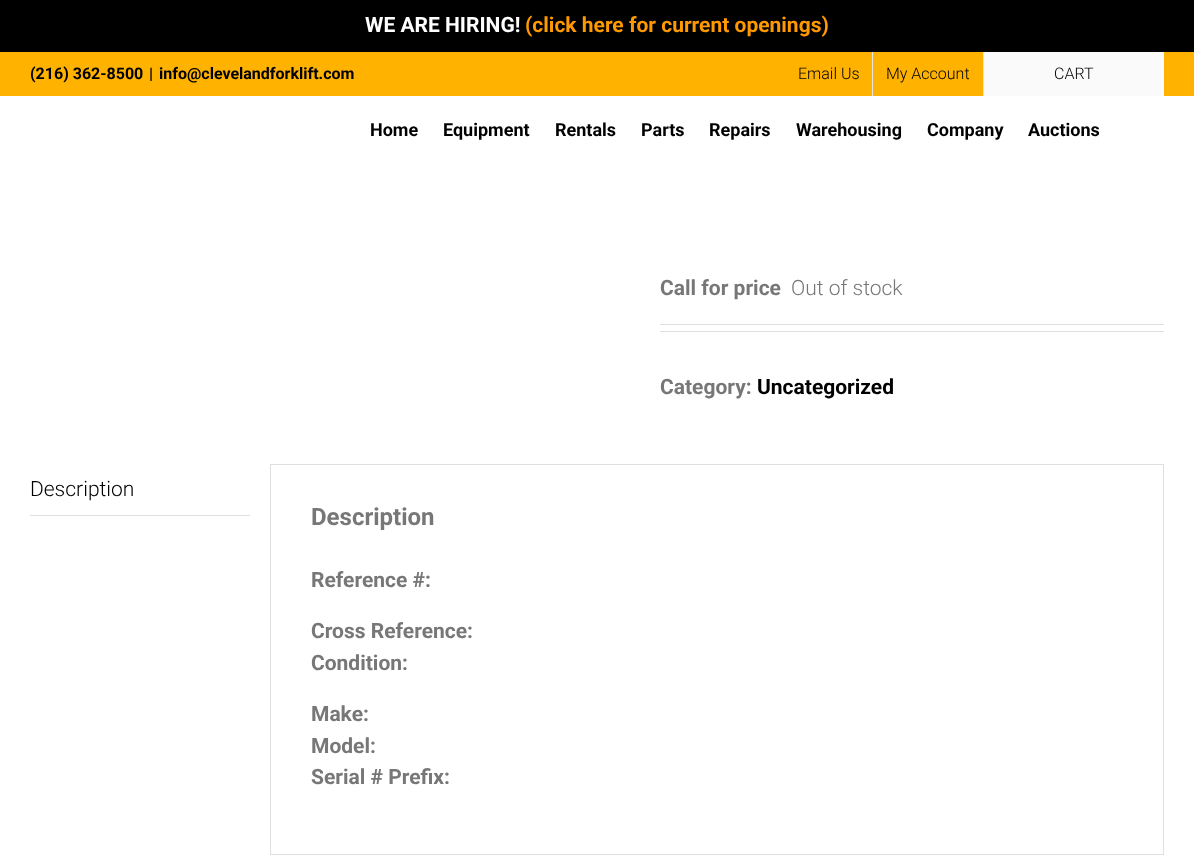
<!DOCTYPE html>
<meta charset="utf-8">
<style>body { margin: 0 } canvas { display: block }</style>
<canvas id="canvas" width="1194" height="860"></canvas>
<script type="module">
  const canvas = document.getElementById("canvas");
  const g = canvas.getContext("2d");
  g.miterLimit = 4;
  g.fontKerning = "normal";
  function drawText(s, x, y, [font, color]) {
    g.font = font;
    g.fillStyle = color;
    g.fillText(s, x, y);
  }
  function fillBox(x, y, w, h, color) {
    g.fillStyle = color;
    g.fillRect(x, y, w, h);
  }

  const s1 = ["bold 21px Roboto", "#FFFFFF"];
  const s2 = ["bold 21px Roboto", "#FF9900"];
  const s3 = ["bold 16px Roboto", "#000000"];
  const s4 = ["300 16px Roboto", "#000000"];
  const s5 = ["bold 18px Roboto", "#000000"];
  const s6 = ["bold 21px Roboto", "#777777"];
  const s7 = ["300 21px Roboto", "#777777"];
  const s8 = ["bold 21px Roboto", "#000000"];
  const s9 = ["300 21px Roboto", "#000000"];
  const s10 = ["bold 24px Roboto", "#777777"];

  fillBox(0, 0, 1194, 860, "#FFFFFF");
  fillBox(0, 0, 1194, 52, "#000000");
  drawText("WE ARE HIRING!", 365, 32, s1);
  drawText("(click here for current openings)", 525, 32, s2);
  fillBox(0, 52, 1194, 44, "#FFB200");
  drawText("(216) 362-8500", 30, 79, s3);
  drawText("|", 149, 79, s3);
  drawText("info@clevelandforklift.com", 159, 79, s3);
  drawText("Email Us", 798, 79, s4);
  fillBox(872, 52, 1, 44, "#E5E5E5");
  drawText("My Account", 886, 79, s4);
  fillBox(983, 52, 1, 44, "#E5E5E5");
  fillBox(984, 52, 180, 44, "#FAFAFA");
  drawText("CART", 1054, 79, s4);
  drawText("Home", 370, 136, s5);
  drawText("Equipment", 443, 136, s5);
  drawText("Rentals", 555, 136, s5);
  drawText("Parts", 641, 136, s5);
  drawText("Repairs", 709, 136, s5);
  drawText("Warehousing", 796, 136, s5);
  drawText("Company", 927, 136, s5);
  drawText("Auctions", 1028, 136, s5);
  drawText("Call for price", 660, 295, s6);
  drawText("Out of stock", 791, 295, s7);
  fillBox(660, 324, 504, 1, "#E0DEDE");
  fillBox(660, 331, 504, 1, "#E0DEDE");
  drawText("Category:", 660, 394, s6);
  drawText("Uncategorized", 757, 394, s8);
  fillBox(30, 515, 220, 1, "#E0DEDE");
  drawText("Description", 30, 496, s9);
  g.strokeStyle = "#E0DEDE";
  g.strokeRect(270.5, 464.5, 893, 390);
  drawText("Description", 311, 525, s10);
  drawText("Reference #:", 311, 587, s6);
  drawText("Cross Reference:", 311, 638, s6);
  drawText("Condition:", 311, 670, s6);
  drawText("Make:", 311, 721, s6);
  drawText("Model:", 311, 753, s6);
  drawText("Serial # Prefix:", 311, 784, s6);
</script>
